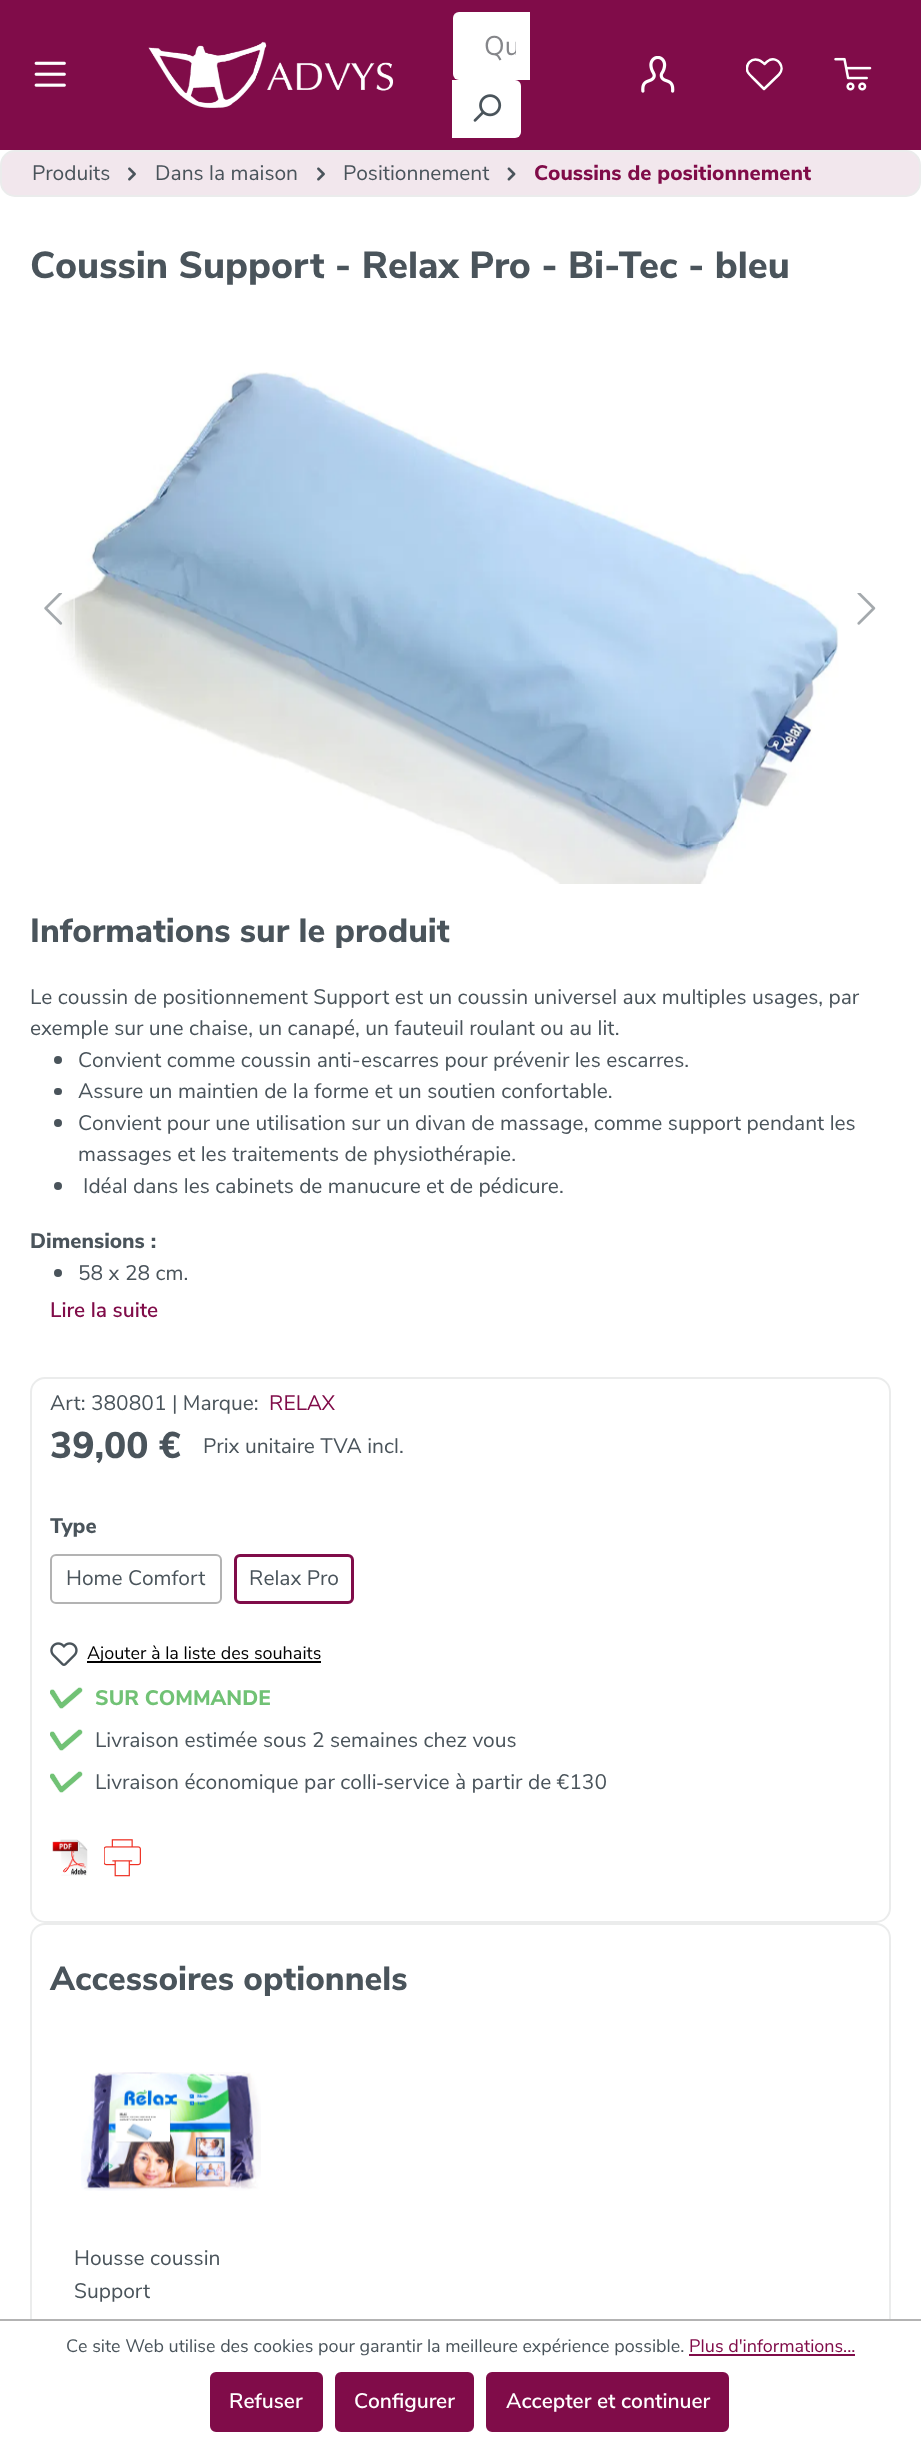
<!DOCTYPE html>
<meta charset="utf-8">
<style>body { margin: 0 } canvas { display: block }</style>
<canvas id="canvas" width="921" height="2443"></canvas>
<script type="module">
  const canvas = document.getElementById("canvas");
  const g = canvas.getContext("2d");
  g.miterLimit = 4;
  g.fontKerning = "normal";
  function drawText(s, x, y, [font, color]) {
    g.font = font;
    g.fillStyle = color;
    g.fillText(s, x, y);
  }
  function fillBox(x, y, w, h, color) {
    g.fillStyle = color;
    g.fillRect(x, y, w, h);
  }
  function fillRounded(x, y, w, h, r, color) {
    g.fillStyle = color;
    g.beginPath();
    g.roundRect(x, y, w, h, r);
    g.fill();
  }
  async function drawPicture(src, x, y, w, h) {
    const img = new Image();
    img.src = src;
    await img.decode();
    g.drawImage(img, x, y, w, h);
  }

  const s1 = ["27px Nunito Sans", "#85868A"];
  const s2 = ["21px Nunito Sans", "#4A545B"];
  const s3 = ["800 21px Nunito Sans", "#800C49"];
  const s4 = ["800 37.5px Nunito Sans", "#4A545B"];
  const s5 = ["800 33.4px Nunito Sans", "#4A545B"];
  const s6 = ["800 21px Nunito Sans", "#4A545B"];
  const s7 = ["600 21px Nunito Sans", "#800C49"];
  const s8 = ["21px Nunito Sans", "#800C49"];
  const s9 = ["800 37px Nunito Sans", "#4A545B"];
  const s10 = ["18px Nunito Sans", "#000000"];
  const s11 = ["800 21px Nunito Sans", "#71C275"];
  const s12 = ["18px Nunito Sans", "#4A545B"];
  const s13 = ["18px Nunito Sans", "#800C49"];
  const s14 = ["600 21px Nunito Sans", "#FFFFFF"];

  fillBox(0, 0, 921, 2443, "#FFFFFF");
  fillBox(0, 0, 921, 150, "#800C49");
  await drawPicture("pic1.png", 34, 61, 32, 26);
  await drawPicture("pic2.png", 148, 41, 246, 67);
  g.fillStyle = "#FFFFFF";
  g.beginPath();
  g.roundRect(453, 12, 77, 68, [6, 0, 0, 6]);
  g.fill();
  g.save();
  g.beginPath();
  g.rect(483, 29, 33, 36);
  g.clip();
  drawText("Qu", 484, 55, s1);
  g.restore();
  g.beginPath();
  g.roundRect(452, 80, 69, 58, [0, 6, 6, 0]);
  g.fill();
  await drawPicture("pic3.png", 473, 94, 29, 28);
  await drawPicture("pic4.png", 641, 56, 34, 37);
  g.save();
  g.beginPath();
  g.rect(746, 56, 37, 37);
  g.clip();
  g.beginPath();
  g.moveTo(779, 74.5);
  g.bezierCurveTo(785.5, 68, 778.5, 56.5, 769.5, 60);
  g.bezierCurveTo(767.5, 61, 766, 62.5, 764.5, 64);
  g.bezierCurveTo(762.5, 62.5, 761, 60.5, 758.5, 60);
  g.bezierCurveTo(751.5, 57.5, 745, 64.5, 747.5, 71.5);
  g.bezierCurveTo(749, 74.5, 752, 77, 754.5, 79.5);
  g.lineTo(764, 89);
  g.closePath();
  g.strokeStyle = "#FFFFFF";
  g.lineWidth = 2.5;
  g.lineCap = "round";
  g.lineJoin = "round";
  g.stroke();
  g.restore();
  await drawPicture("pic5.png", 834, 57, 38, 34);
  g.fillStyle = "#F2E7ED";
  g.beginPath();
  g.roundRect(1, 151, 919, 45, 14);
  g.fill();
  g.strokeStyle = "#EBECEC";
  g.lineWidth = 2;
  g.stroke();
  drawText("Produits", 32, 180, s2);
  await drawPicture("pic6.png", 128, 167, 8, 14);
  drawText("Dans la maison", 155, 180, s2);
  await drawPicture("pic6.png", 317, 167, 8, 14);
  drawText("Positionnement", 343, 180, s2);
  await drawPicture("pic7.png", 507, 167, 9, 14);
  drawText("Coussins de positionnement", 534, 180, s3);
  drawText("Coussin Support - Relax Pro - Bi-Tec - bleu", 30, 278, s4);
  await drawPicture("pic8.png", 56, 372, 783, 512);
  g.fillStyle = "rgba(255, 255, 255, 0.25)";
  g.beginPath();
  g.roundRect(30, 561, 45, 98, [0, 6, 6, 0]);
  g.fill();
  g.beginPath();
  g.roundRect(31, 562, 43, 96, [0, 5, 5, 0]);
  g.strokeStyle = "rgba(255, 255, 255, 0.25)";
  g.stroke();
  await drawPicture("pic9.png", 44, 593, 19, 32);
  await drawPicture("pic10.png", 857, 593, 19, 32);
  drawText("Informations sur le produit", 30, 942, s5);
  drawText("Le coussin de positionnement Support est un coussin universel aux multiples usages, par", 30, 1004, s2);
  drawText("exemple sur une chaise, un canapé, un fauteuil roulant ou au lit.", 30, 1035, s2);
  g.beginPath();
  g.arc(58, 1060, 4, 0, Math.PI * 2);
  g.fill();
  drawText("Convient comme coussin anti-escarres pour prévenir les escarres.", 78, 1067, s2);
  fillRounded(54, 1088, 8, 7, 3.5, "#4A545B");
  drawText("Assure un maintien de la forme et un soutien confortable.", 78, 1098, s2);
  g.beginPath();
  g.arc(58, 1123, 4, 0, Math.PI * 2);
  g.fill();
  drawText("Convient pour une utilisation sur un divan de massage, comme support pendant les", 78, 1130, s2);
  drawText("massages et les traitements de physiothérapie.", 78, 1161, s2);
  g.beginPath();
  g.arc(58, 1186, 4, 0, Math.PI * 2);
  g.fill();
  drawText("Idéal dans les cabinets de manucure et de pédicure.", 83, 1193, s2);
  drawText("Dimensions :", 30, 1248, s6);
  g.beginPath();
  g.arc(58, 1273, 4, 0, Math.PI * 2);
  g.fill();
  drawText("58 x 28 cm.", 78, 1280, s2);
  drawText("Lire la suite", 50, 1317, s7);
  g.beginPath();
  g.roundRect(31, 1378, 859, 544, 14);
  g.strokeStyle = "#EBECEC";
  g.stroke();
  drawText("Art: 380801 | Marque:", 50, 1410, s2);
  drawText("RELAX", 269, 1410, s8);
  drawText("39,00 €", 50, 1458, s9);
  drawText("Prix unitaire TVA incl.", 203, 1453, s2);
  drawText("Type", 50, 1533, s6);
  g.beginPath();
  g.roundRect(51, 1555, 170, 48, 5);
  g.strokeStyle = "#B3B3B3";
  g.stroke();
  drawText("Home Comfort", 66, 1585, s2);
  g.beginPath();
  g.roundRect(235.5, 1555.5, 117, 47, 4.5);
  g.strokeStyle = "#800C49";
  g.lineWidth = 3;
  g.stroke();
  drawText("Relax Pro", 249, 1585, s2);
  await drawPicture("pic11.png", 50, 1642, 28, 24);
  fillBox(87, 1661, 234, 2, "#000000");
  drawText("Ajouter à la liste des souhaits", 87, 1659, s10);
  await drawPicture("pic12.png", 50, 1687, 33, 22);
  drawText("SUR COMMANDE", 95, 1705, s11);
  await drawPicture("pic12.png", 50, 1729, 33, 22);
  drawText("Livraison estimée sous 2 semaines chez vous", 95, 1747, s2);
  await drawPicture("pic12.png", 50, 1771, 33, 22);
  drawText("Livraison économique par colli‑service à partir de €130", 95, 1789, s2);
  await drawPicture("pic13.png", 52, 1839, 36, 37);
  await drawPicture("pic14.png", 104, 1839, 37, 38);
  g.beginPath();
  g.roundRect(31, 1924, 859, 451, 14);
  g.strokeStyle = "#EBECEC";
  g.lineWidth = 2;
  g.stroke();
  drawText("Accessoires optionnels", 50, 1990, s5);
  await drawPicture("pic15.png", 81, 2072, 180, 119);
  drawText("Housse coussin", 74, 2265, s2);
  drawText("Support", 74, 2298, s2);
  fillBox(30, 2321, 861, 55, "#FFFFFF");
  fillBox(0, 2319, 921, 2, "#B3B3B3");
  drawText("Ce site Web utilise des cookies pour garantir la meilleure expérience possible.", 66, 2352, s12);
  drawText("Plus d'informations...", 689, 2352, s13);
  fillBox(689, 2354, 166, 2, "#800C49");
  g.beginPath();
  g.roundRect(211, 2373, 111, 58, 5);
  g.fill();
  g.strokeStyle = "#800C49";
  g.stroke();
  drawText("Refuser", 229, 2408, s14);
  g.fillStyle = "#800C49";
  g.beginPath();
  g.roundRect(336, 2373, 137, 58, 5);
  g.fill();
  g.stroke();
  drawText("Configurer", 354, 2408, s14);
  g.fillStyle = "#800C49";
  g.beginPath();
  g.roundRect(487, 2373, 241, 58, 5);
  g.fill();
  g.stroke();
  drawText("Accepter et continuer", 506, 2408, s14);
</script>
